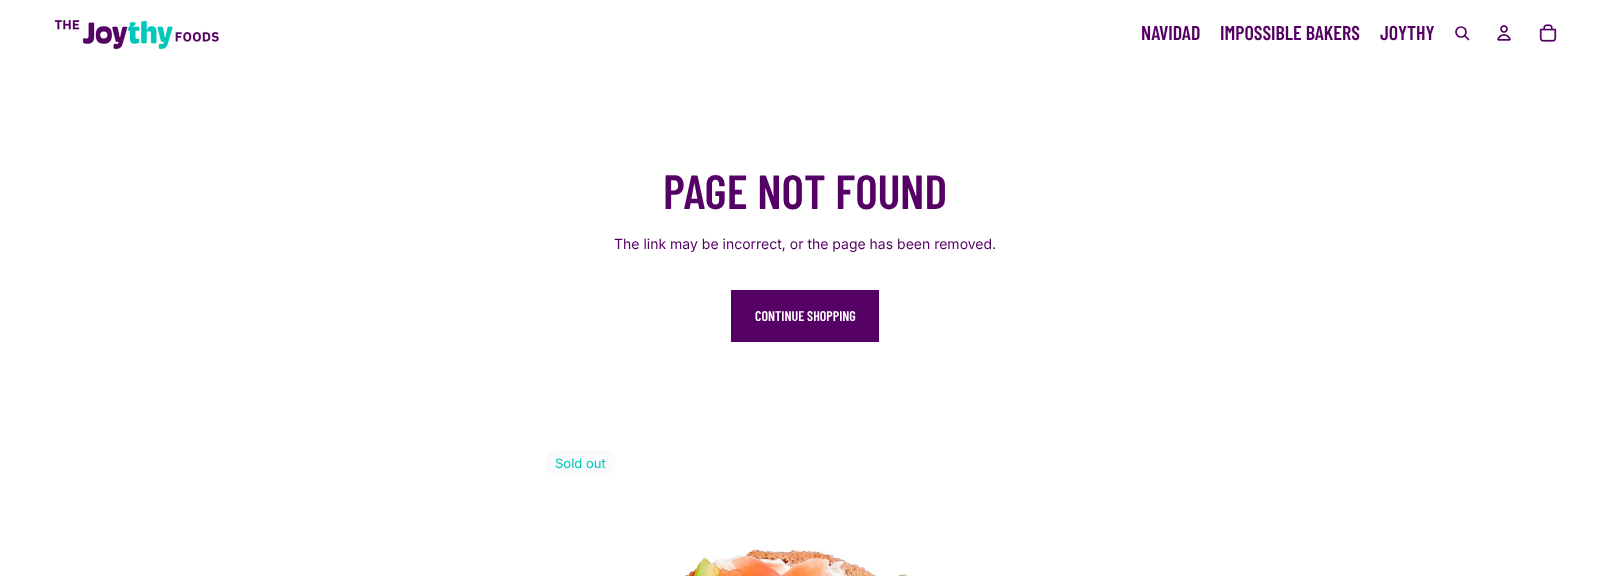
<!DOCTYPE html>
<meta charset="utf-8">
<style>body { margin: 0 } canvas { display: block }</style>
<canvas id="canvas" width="1610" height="576"></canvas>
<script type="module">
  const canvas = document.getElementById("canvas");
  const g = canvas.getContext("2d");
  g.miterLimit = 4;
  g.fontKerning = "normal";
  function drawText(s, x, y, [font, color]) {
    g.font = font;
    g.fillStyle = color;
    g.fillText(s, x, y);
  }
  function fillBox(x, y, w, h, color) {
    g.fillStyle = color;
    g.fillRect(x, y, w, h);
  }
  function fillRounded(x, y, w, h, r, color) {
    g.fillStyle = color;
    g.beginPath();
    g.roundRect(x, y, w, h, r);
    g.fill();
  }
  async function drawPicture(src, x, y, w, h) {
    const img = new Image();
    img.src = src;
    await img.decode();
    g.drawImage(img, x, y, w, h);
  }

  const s1 = ["600 20px Barlow Condensed", "#550064"];
  const s2 = ["600 48px Barlow Condensed", "#550064"];
  const s3 = ["14px Inter", "#550064"];
  const s4 = ["600 14px Barlow Condensed", "#FFFFFF"];
  const s5 = ["13px Inter", "#00C8B9"];

  fillBox(0, 0, 1610, 576, "#FFFFFF");
  await drawPicture("pic1.png", 54, 20, 165, 30);
  drawText("NAVIDAD", 1141, 40, s1);
  drawText("IMPOSSIBLE BAKERS", 1220, 40, s1);
  drawText("JOYTHY", 1380, 40, s1);
  g.beginPath();
  g.arc(1461, 32, 5, 0, Math.PI * 2);
  g.strokeStyle = "#550064";
  g.lineWidth = 1.7;
  g.stroke();
  g.beginPath();
  g.moveTo(1465, 36);
  g.lineTo(1468.5, 39.5);
  g.lineCap = "round";
  g.lineJoin = "round";
  g.stroke();
  await drawPicture("pic2.png", 1497, 25, 14, 16);
  await drawPicture("pic3.png", 1539, 24, 18, 18);
  drawText("PAGE NOT FOUND", 663, 209, s2);
  drawText("The link may be incorrect, or the page has been removed.", 614, 249, s3);
  fillBox(731, 290, 148, 52, "#550064");
  drawText("CONTINUE SHOPPING", 755, 321, s4);
  await drawPicture("pic4.png", 537, 442, 536, 134);
  fillRounded(545, 450, 71, 26, 13, "#F9FAFB");
  drawText("Sold out", 555, 468, s5);
</script>
